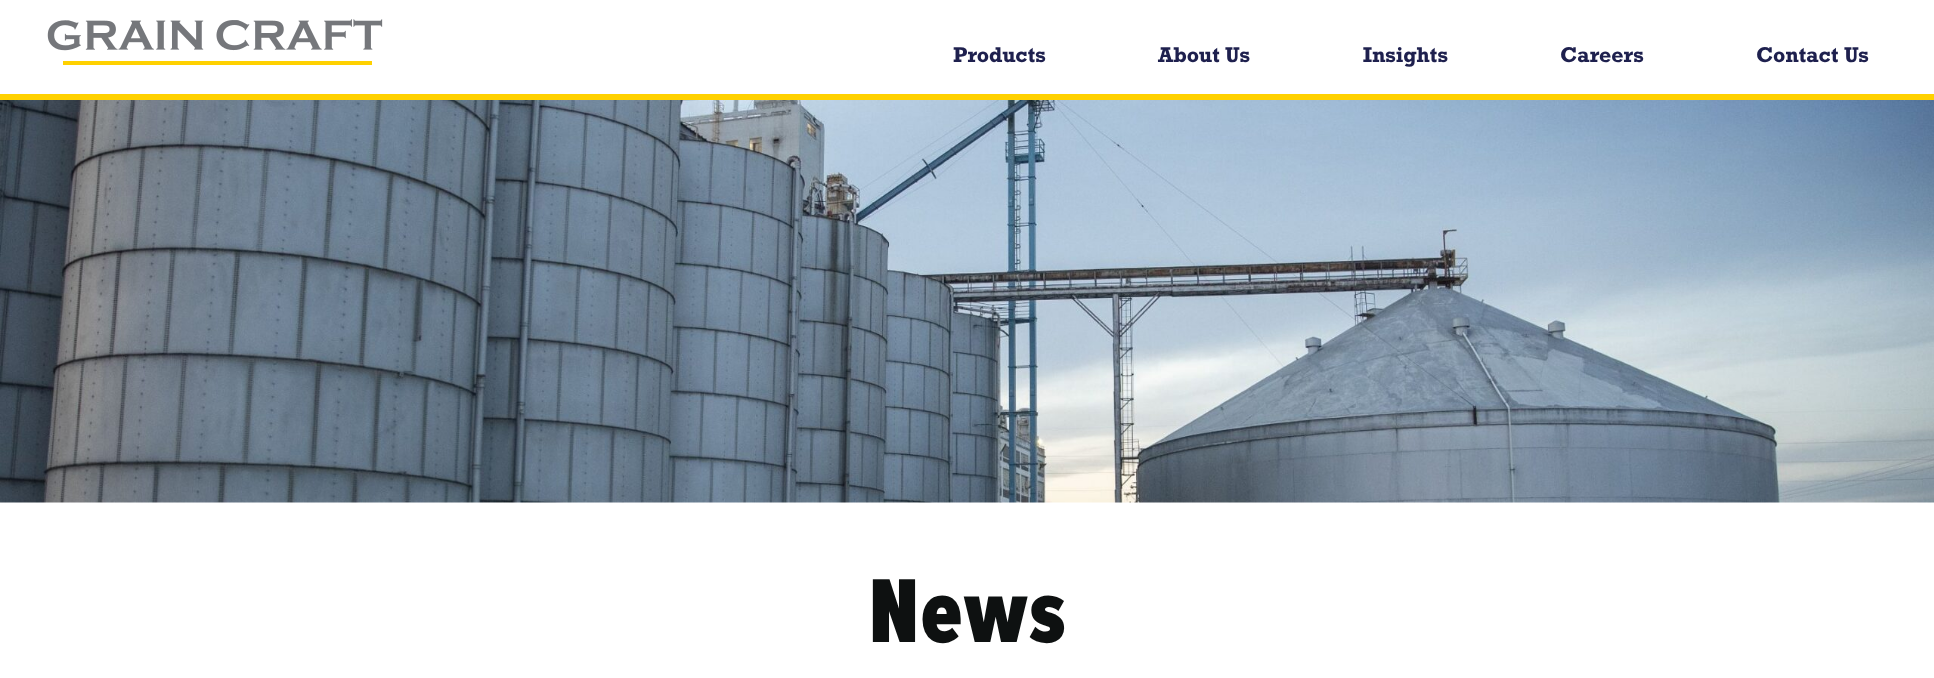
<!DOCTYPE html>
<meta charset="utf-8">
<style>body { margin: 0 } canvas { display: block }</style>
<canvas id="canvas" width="1934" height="678"></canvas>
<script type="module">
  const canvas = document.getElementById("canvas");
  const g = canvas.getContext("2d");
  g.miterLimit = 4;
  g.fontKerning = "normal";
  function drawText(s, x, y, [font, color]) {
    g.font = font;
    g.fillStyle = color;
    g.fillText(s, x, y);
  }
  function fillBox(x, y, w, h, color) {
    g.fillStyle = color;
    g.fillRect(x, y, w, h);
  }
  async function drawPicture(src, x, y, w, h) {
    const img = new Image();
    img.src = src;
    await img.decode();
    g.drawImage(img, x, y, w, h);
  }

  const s1 = ["bold 20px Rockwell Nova", "#1E204E"];
  const s2 = ["900 94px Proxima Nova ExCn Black", "#0E1111"];

  fillBox(0, 0, 1934, 678, "#FFFFFF");
  fillBox(0, 94, 1934, 6, "#FFD100");
  await drawPicture("pic1.png", 47, 19, 336, 46);
  drawText("Products", 953, 62, s1);
  drawText("About Us", 1158, 62, s1);
  drawText("Insights", 1363, 62, s1);
  drawText("Careers", 1560, 62, s1);
  drawText("Contact Us", 1756, 62, s1);
  await drawPicture("pic2.png", 0, 100, 1934, 403);
  g.letterSpacing = "2px";
  drawText("News", 869, 642, s2);
</script>
